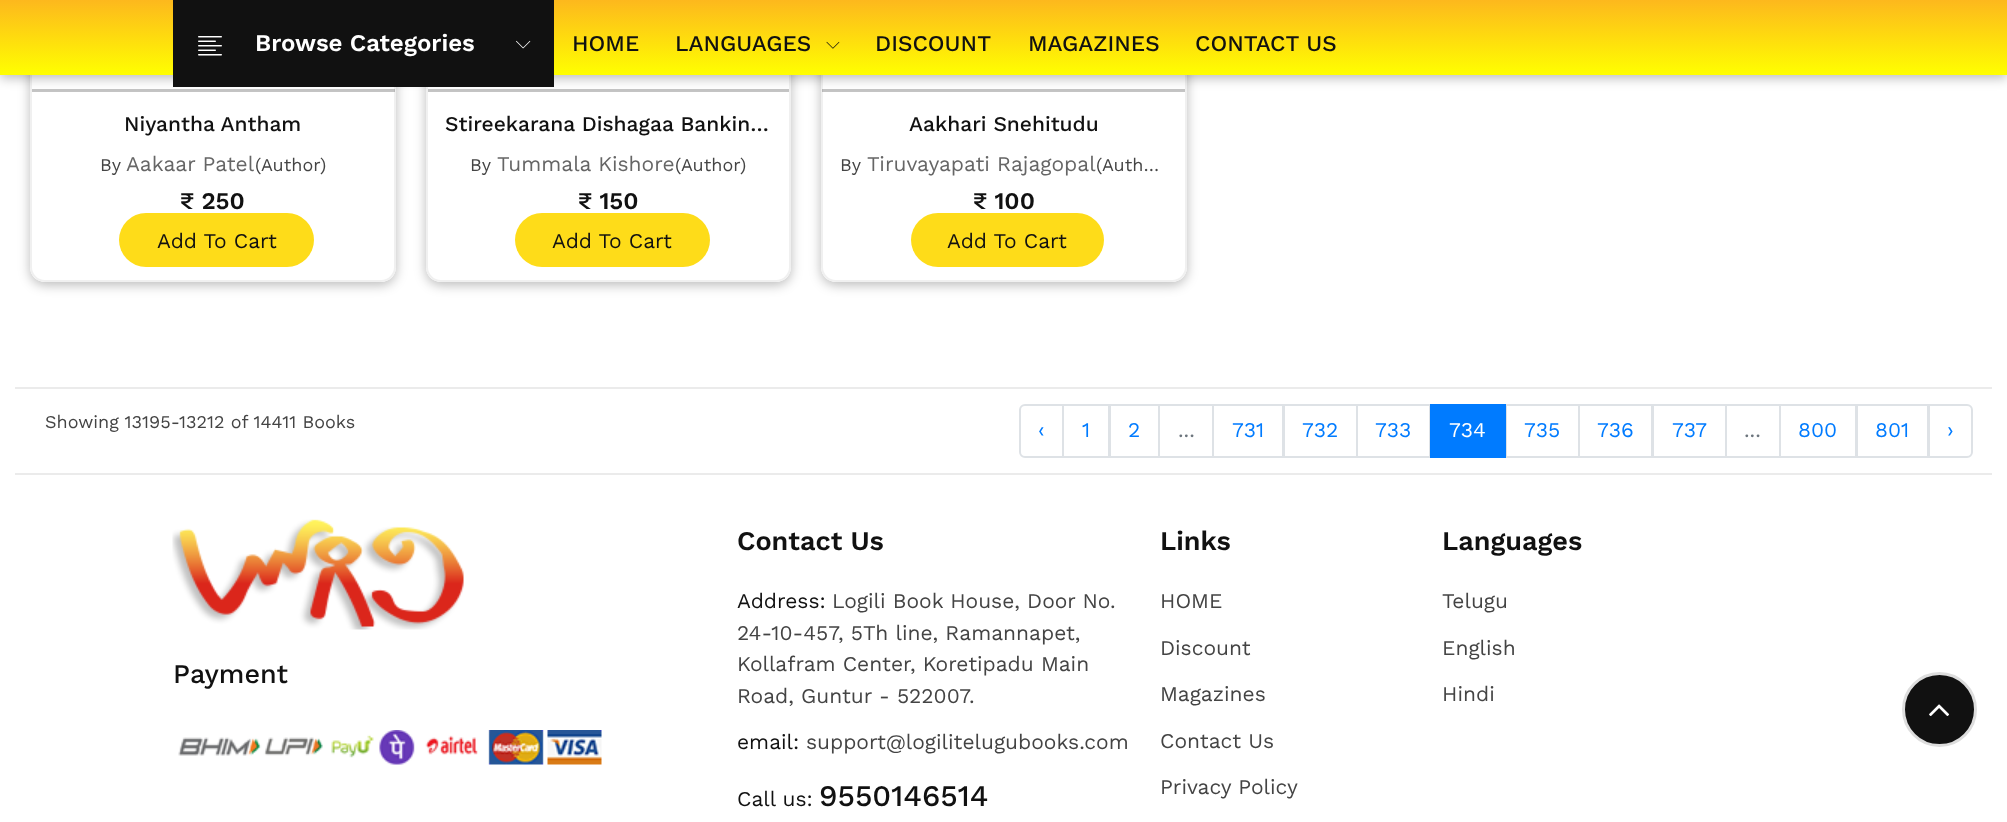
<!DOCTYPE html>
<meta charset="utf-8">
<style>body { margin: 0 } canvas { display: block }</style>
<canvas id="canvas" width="2007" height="822"></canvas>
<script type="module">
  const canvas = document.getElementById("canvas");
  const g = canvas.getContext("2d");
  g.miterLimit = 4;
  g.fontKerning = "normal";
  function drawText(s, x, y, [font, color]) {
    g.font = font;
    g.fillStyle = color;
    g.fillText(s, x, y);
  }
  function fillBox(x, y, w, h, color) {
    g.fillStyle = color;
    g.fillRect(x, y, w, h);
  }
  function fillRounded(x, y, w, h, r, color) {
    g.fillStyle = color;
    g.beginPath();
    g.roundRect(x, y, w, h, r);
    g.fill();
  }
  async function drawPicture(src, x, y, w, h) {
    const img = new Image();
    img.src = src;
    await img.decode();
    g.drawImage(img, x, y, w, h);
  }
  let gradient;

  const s1 = ["600 24px Work Sans", "#FFFFFF"];
  const s2 = ["500 22.5px Work Sans", "#111111"];
  const s3 = ["500 21px Work Sans", "#111111"];
  const s4 = ["18px Work Sans", "#444444"];
  const s5 = ["21px Work Sans", "#666666"];
  const s6 = ["600 24px Work Sans", "#111111"];
  const s7 = ["21px Work Sans", "#111111"];
  const s8 = ["21px Work Sans", "#007BFF"];
  const s9 = ["21px Work Sans", "#6C757D"];
  const s10 = ["21px Work Sans", "#FFFFFF"];
  const s11 = ["500 27px Work Sans", "#111111"];
  const s12 = ["600 27px Work Sans", "#111111"];
  const s13 = ["21px Work Sans", "#444444"];
  const s14 = ["500 30px Work Sans", "#111111"];

  fillBox(0, 0, 2007, 822, "#FFFFFF");
  g.save();
  g.beginPath();
  g.moveTo(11, 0);
  g.lineTo(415, 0);
  g.lineTo(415, 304);
  g.lineTo(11, 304);
  g.closePath();
  g.moveTo(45, -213);
  g.lineTo(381, -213);
  g.bezierCurveTo(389.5, -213, 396, -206.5, 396, -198);
  g.lineTo(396, 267);
  g.bezierCurveTo(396, 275.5, 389.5, 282, 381, 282);
  g.lineTo(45, 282);
  g.bezierCurveTo(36.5, 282, 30, 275.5, 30, 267);
  g.lineTo(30, -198);
  g.bezierCurveTo(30, -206.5, 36.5, -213, 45, -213);
  g.closePath();
  g.clip("evenodd");
  g.fillStyle = "rgba(0, 0, 0, 0.27)";
  g.filter = "blur(6px)";
  g.beginPath();
  g.roundRect(30, -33, 366, 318, 15);
  g.fill();
  g.filter = "none";
  g.restore();
  g.beginPath();
  g.roundRect(31, -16, 364, 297, 14);
  g.strokeStyle = "#F0F0F0";
  g.lineWidth = 2;
  g.stroke();
  fillBox(32, 89, 363, 3, "rgba(0, 0, 0, 0.23)");
  g.save();
  g.beginPath();
  g.moveTo(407, 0);
  g.lineTo(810, 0);
  g.lineTo(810, 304);
  g.lineTo(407, 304);
  g.closePath();
  g.moveTo(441, -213);
  g.lineTo(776, -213);
  g.bezierCurveTo(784.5, -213, 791, -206.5, 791, -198);
  g.lineTo(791, 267);
  g.bezierCurveTo(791, 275.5, 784.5, 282, 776, 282);
  g.lineTo(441, 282);
  g.bezierCurveTo(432.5, 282, 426, 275.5, 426, 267);
  g.lineTo(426, -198);
  g.bezierCurveTo(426, -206.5, 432.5, -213, 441, -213);
  g.closePath();
  g.clip("evenodd");
  g.fillStyle = "rgba(0, 0, 0, 0.27)";
  g.filter = "blur(6px)";
  g.beginPath();
  g.roundRect(426, -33, 365, 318, 15);
  g.fill();
  g.filter = "none";
  g.restore();
  g.beginPath();
  g.roundRect(427, -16, 363, 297, 14);
  g.stroke();
  fillBox(428, 89, 361, 3, "#C4C4C4");
  g.save();
  g.beginPath();
  g.moveTo(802, 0);
  g.lineTo(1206, 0);
  g.lineTo(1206, 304);
  g.lineTo(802, 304);
  g.closePath();
  g.moveTo(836, -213);
  g.lineTo(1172, -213);
  g.bezierCurveTo(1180.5, -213, 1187, -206.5, 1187, -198);
  g.lineTo(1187, 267);
  g.bezierCurveTo(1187, 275.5, 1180.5, 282, 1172, 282);
  g.lineTo(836, 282);
  g.bezierCurveTo(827.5, 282, 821, 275.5, 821, 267);
  g.lineTo(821, -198);
  g.bezierCurveTo(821, -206.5, 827.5, -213, 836, -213);
  g.closePath();
  g.clip("evenodd");
  g.fillStyle = "rgba(0, 0, 0, 0.27)";
  g.filter = "blur(6px)";
  g.beginPath();
  g.roundRect(821, -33, 366, 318, 15);
  g.fill();
  g.filter = "none";
  g.restore();
  g.beginPath();
  g.roundRect(822, -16, 364, 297, 14);
  g.stroke();
  fillBox(822, 89, 363, 3, "rgba(0, 0, 0, 0.23)");
  g.fillStyle = "rgba(0, 0, 0, 0.27)";
  g.filter = "blur(6px)";
  g.beginPath();
  g.rect(0, 3, 2007, 75);
  g.fill();
  g.filter = "none";
  gradient = g.createLinearGradient(1004, 0, 1004, 75);
  gradient.addColorStop(0, "#FDB81D");
  gradient.addColorStop(1, "#FFFF00");
  g.fillStyle = gradient;
  g.fillRect(0, 0, 2007, 75);
  fillBox(173, 0, 381, 87, "#111111");
  await drawPicture("pic1.png", 198, 36, 24, 20);
  drawText("Browse Categories", 255, 51, s1);
  await drawPicture("pic2.png", 516, 40, 15, 9);
  drawText("HOME", 572, 51, s2);
  drawText("LANGUAGES", 675, 51, s2);
  await drawPicture("pic3.png", 826, 41, 14, 8);
  drawText("DISCOUNT", 875, 51, s2);
  drawText("MAGAZINES", 1028, 51, s2);
  drawText("CONTACT US", 1195, 51, s2);
  drawText("Niyantha Antham", 124, 131, s3);
  drawText("By", 100, 171, s4);
  drawText("Aakaar Patel", 126, 171, s5);
  drawText("(Author)", 255, 171, s4);
  drawText("₹ 250", 180, 209, s6);
  fillRounded(119, 213, 195, 54, 27, "#FEDC19");
  drawText("Add To Cart", 157, 248, s7);
  drawText("Stireekarana Dishagaa Bankin…", 445, 131, s3);
  drawText("By", 470, 171, s4);
  drawText("Tummala Kishore", 497, 171, s5);
  drawText("(Author)", 675, 171, s4);
  drawText("₹ 150", 578, 209, s6);
  fillRounded(515, 213, 195, 54, 27, "#FEDC19");
  drawText("Add To Cart", 552, 248, s7);
  drawText("Aakhari Snehitudu", 909, 131, s3);
  drawText("By", 840, 171, s4);
  drawText("Tiruvayapati Rajagopal", 867, 171, s5);
  drawText("(Auth…", 1096, 171, s4);
  drawText("₹ 100", 973, 209, s6);
  fillRounded(911, 213, 193, 54, 27, "#FEDC19");
  drawText("Add To Cart", 947, 248, s7);
  fillBox(15, 387, 1977, 2, "#EBEBEB");
  fillBox(15, 473, 1977, 2, "#EBEBEB");
  drawText("Showing 13195-13212 of 14411 Books", 45, 428, s4);
  g.beginPath();
  g.roundRect(1020, 405, 43, 52, [5, 0, 0, 5]);
  g.strokeStyle = "#DEE2E6";
  g.stroke();
  drawText("‹", 1038, 437, s8);
  g.strokeRect(1063, 405, 46, 52);
  drawText("1", 1082, 437, s8);
  g.strokeRect(1110, 405, 49, 52);
  drawText("2", 1128, 437, s8);
  g.strokeRect(1159, 405, 54, 52);
  drawText("...", 1178, 437, s9);
  g.strokeRect(1213, 405, 70, 52);
  drawText("731", 1232, 437, s8);
  g.strokeRect(1284, 405, 73, 52);
  drawText("732", 1302, 437, s8);
  g.strokeRect(1357, 405, 73, 52);
  drawText("733", 1375, 437, s8);
  g.strokeRect(1506, 405, 73, 52);
  fillBox(1430, 404, 76, 54, "#007BFF");
  drawText("734", 1449, 437, s10);
  drawText("735", 1524, 437, s8);
  g.strokeRect(1579, 405, 73, 52);
  drawText("736", 1597, 437, s8);
  g.strokeRect(1653, 405, 73, 52);
  drawText("737", 1672, 437, s8);
  g.strokeRect(1726, 405, 54, 52);
  drawText("...", 1744, 437, s9);
  g.strokeRect(1780, 405, 76, 52);
  drawText("800", 1798, 437, s8);
  g.strokeRect(1857, 405, 71, 52);
  drawText("801", 1875, 437, s8);
  g.fillStyle = "#FFFFFF";
  g.beginPath();
  g.roundRect(1929, 405, 43, 52, [0, 5, 5, 0]);
  g.fill();
  g.stroke();
  drawText("›", 1947, 437, s8);
  await drawPicture("pic4.png", 172, 519, 292, 111);
  drawText("Payment", 173, 683, s11);
  await drawPicture("pic5.png", 178, 730, 424, 35);
  drawText("Contact Us", 737, 550, s12);
  drawText("Address:", 737, 608, s7);
  drawText("Logili Book House, Door No.", 832, 608, s13);
  drawText("24-10-457, 5Th line, Ramannapet,", 737, 640, s13);
  drawText("Kollafram Center, Koretipadu Main", 737, 671, s13);
  drawText("Road, Guntur - 522007.", 737, 703, s13);
  drawText("email:", 737, 749, s7);
  drawText("support@logilitelugubooks.com", 806, 749, s13);
  drawText("Call us:", 737, 806, s7);
  drawText("9550146514", 819, 806, s14);
  drawText("Links", 1160, 550, s12);
  drawText("HOME", 1160, 608, s13);
  drawText("Discount", 1160, 655, s13);
  drawText("Magazines", 1160, 701, s13);
  drawText("Contact Us", 1160, 748, s13);
  drawText("Privacy Policy", 1160, 794, s13);
  drawText("Languages", 1442, 550, s12);
  drawText("Telugu", 1442, 608, s13);
  drawText("English", 1442, 655, s13);
  drawText("Hindi", 1442, 701, s13);
  g.fillStyle = "#111111";
  g.beginPath();
  g.arc(1939.5, 709.5, 36, 0, Math.PI * 2);
  g.fill();
  g.strokeStyle = "#DDDDDD";
  g.lineWidth = 3;
  g.stroke();
  await drawPicture("pic6.png", 1929, 704, 21, 12);
</script>
